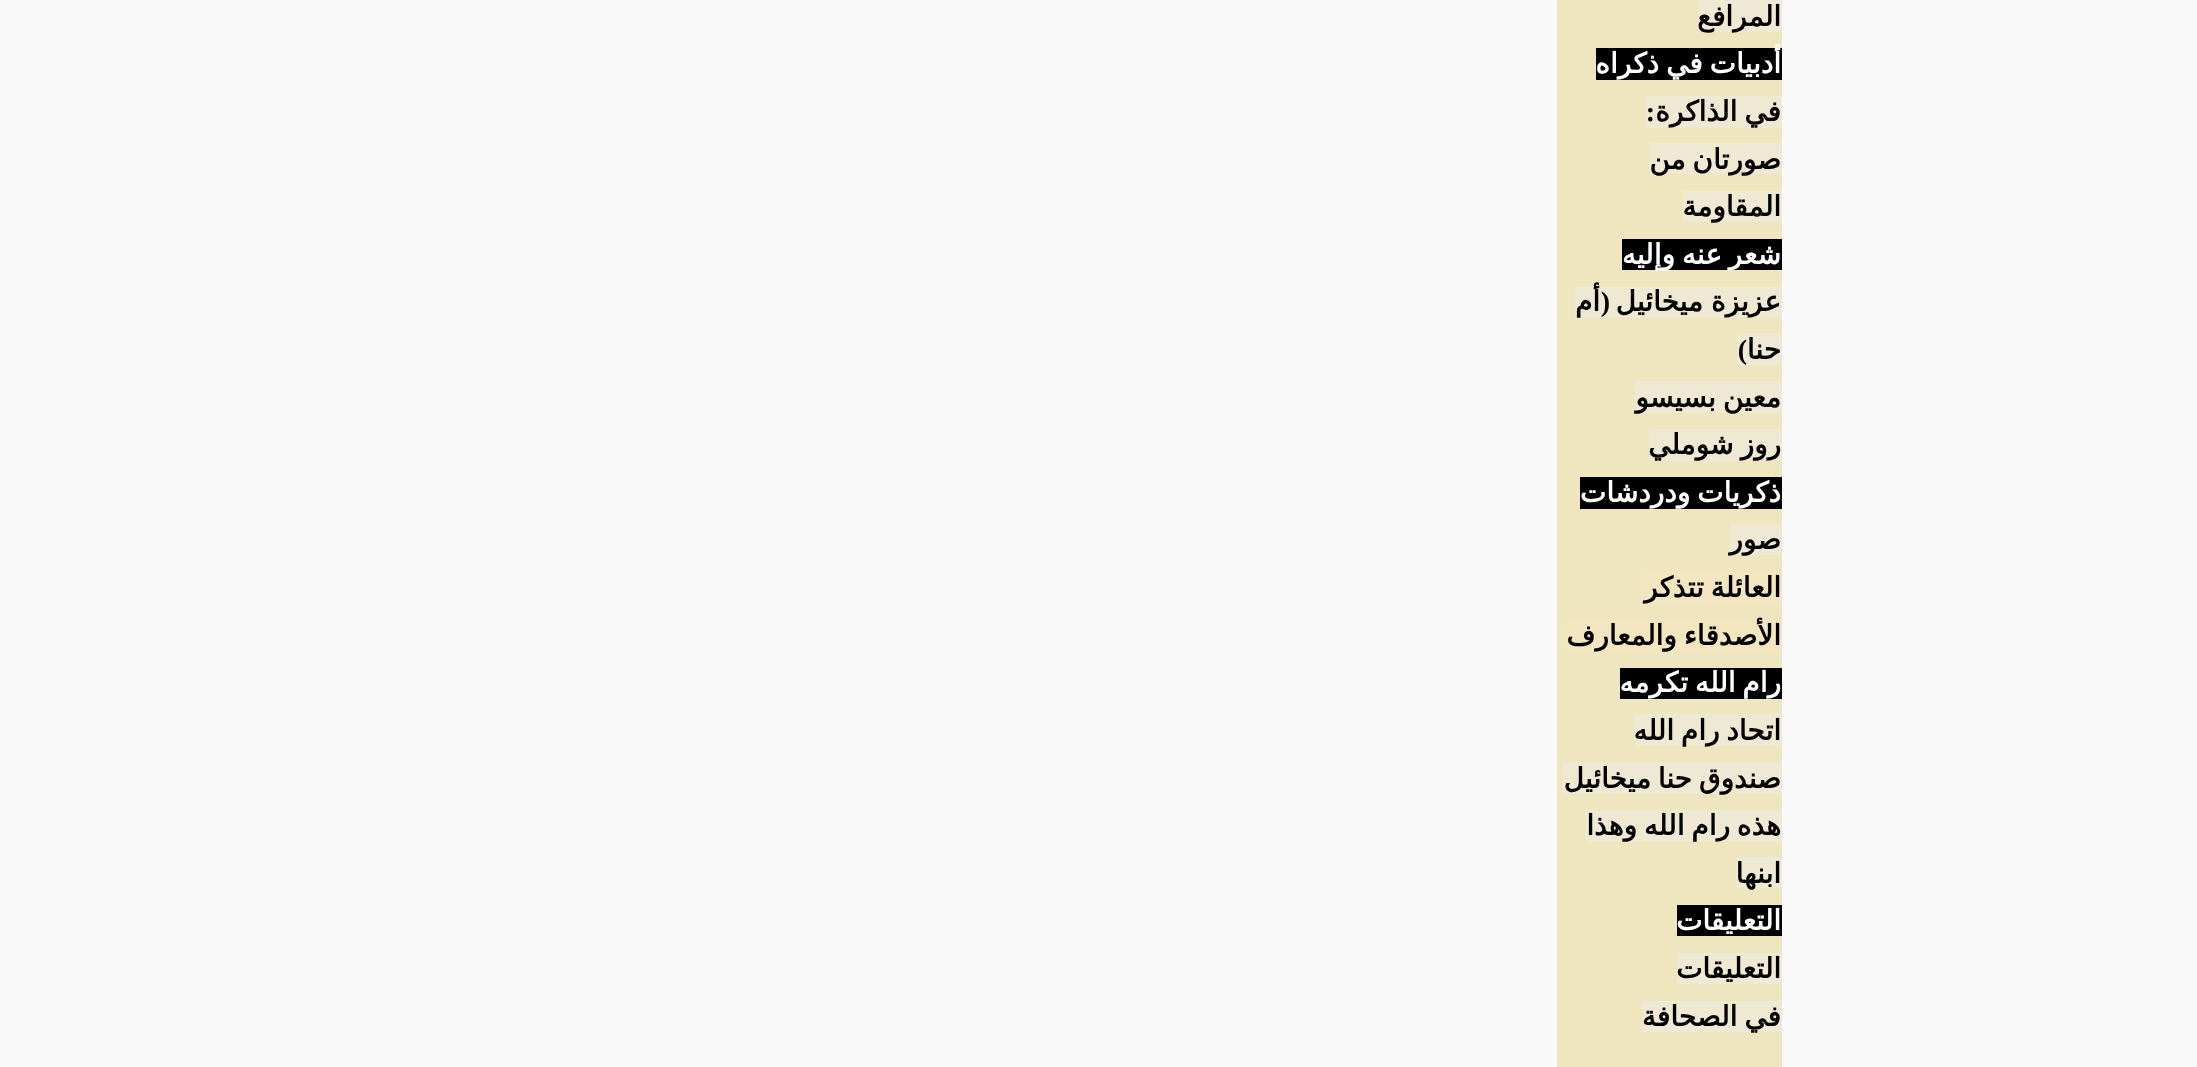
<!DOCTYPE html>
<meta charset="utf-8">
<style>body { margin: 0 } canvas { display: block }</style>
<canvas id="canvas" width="2197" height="1067"></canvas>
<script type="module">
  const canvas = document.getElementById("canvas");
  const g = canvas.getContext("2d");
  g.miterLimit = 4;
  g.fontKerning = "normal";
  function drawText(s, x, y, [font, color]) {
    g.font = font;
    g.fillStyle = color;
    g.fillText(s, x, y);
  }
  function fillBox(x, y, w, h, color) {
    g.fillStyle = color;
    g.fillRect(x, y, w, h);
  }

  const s1 = ["bold 28px DejaVu Sans", "#000000"];
  const s2 = ["bold 28px DejaVu Sans", "#FFFFFF"];
  const s3 = ["bold 28px Liberation Serif", "#000000"];

  fillBox(0, 0, 2197, 1067, "#F9F9F9");
  fillBox(1557, 0, 225, 1067, "#EFE6C0");
  fillBox(1698, 0, 84, 32, "#EFE9D3");
  g.direction = "rtl";
  drawText("المرافع", 1781, 26, s1);
  fillBox(1596, 48, 186, 32, "#000000");
  g.wordSpacing = "-2px";
  drawText("أدبيات في", 1781, 73, s2);
  g.wordSpacing = "0px";
  drawText("ذكراه", 1659, 73, s2);
  fillBox(1646, 96, 136, 32, "#EFE9D3");
  g.wordSpacing = "-2px";
  drawText("في الذاكرة", 1781, 121, s1);
  g.wordSpacing = "0px";
  drawText(":", 1655, 121, s3);
  fillBox(1650, 143, 132, 31, "#EFE9D3");
  g.wordSpacing = "-2px";
  drawText("صورتان من", 1781, 169, s1);
  fillBox(1683, 191, 99, 31, "#EFE9D3");
  g.wordSpacing = "0px";
  drawText("المقاومة", 1781, 216, s1);
  fillBox(1622, 239, 160, 31, "#000000");
  drawText("شعر", 1781, 264, s2);
  g.wordSpacing = "-2px";
  drawText("عنه وإليه", 1722, 264, s2);
  fillBox(1575, 287, 207, 31, "#EFE9D3");
  g.wordSpacing = "-1px";
  drawText("عزيزة ميخائيل", 1781, 311, s1);
  g.wordSpacing = "0px";
  drawText("(", 1610, 311, s3);
  drawText("أم", 1600, 311, s1);
  fillBox(1737, 333, 45, 32, "#EFE9D3");
  drawText("حنا", 1781, 359, s1);
  drawText(")", 1747, 359, s3);
  fillBox(1635, 381, 147, 32, "#EFE9D3");
  g.wordSpacing = "-2px";
  drawText("معين بسيسو", 1781, 407, s1);
  fillBox(1649, 429, 133, 32, "#EFE9D3");
  drawText("روز شوملي", 1781, 454, s1);
  fillBox(1580, 477, 202, 32, "#000000");
  drawText("ذكريات ودردشات", 1781, 502, s2);
  fillBox(1730, 524, 52, 31, "#EFE9D3");
  g.wordSpacing = "0px";
  drawText("صور", 1781, 549, s1);
  fillBox(1644, 572, 138, 31, "#F3E5C0");
  g.wordSpacing = "-2px";
  drawText("العائلة تتذكر", 1781, 597, s1);
  fillBox(1566, 620, 216, 31, "#F3E5C0");
  drawText("الأصدقاء والمعارف", 1781, 645, s1);
  fillBox(1620, 668, 162, 31, "#000000");
  drawText("رام الله تكرمه", 1781, 692, s2);
  fillBox(1634, 714, 148, 32, "#EFE9D3");
  drawText("اتحاد رام الله", 1781, 740, s1);
  fillBox(1563, 762, 219, 32, "#EFE9D3");
  drawText("صندوق حنا", 1781, 788, s1);
  g.wordSpacing = "0px";
  drawText("ميخائيل", 1651, 788, s1);
  fillBox(1586, 810, 196, 32, "#EFE9D3");
  g.wordSpacing = "-2px";
  drawText("هذه رام الله وهذا", 1781, 835, s1);
  fillBox(1736, 857, 46, 31, "#EFE9D3");
  g.wordSpacing = "0px";
  drawText("ابنها", 1781, 883, s1);
  fillBox(1677, 905, 105, 31, "#000000");
  drawText("التعليقات", 1781, 930, s2);
  fillBox(1677, 953, 105, 31, "#EFE9D3");
  drawText("التعليقات", 1781, 978, s1);
  fillBox(1643, 1001, 139, 31, "#EFE9D3");
  g.wordSpacing = "-2px";
  drawText("في الصحافة", 1781, 1026, s1);
</script>
